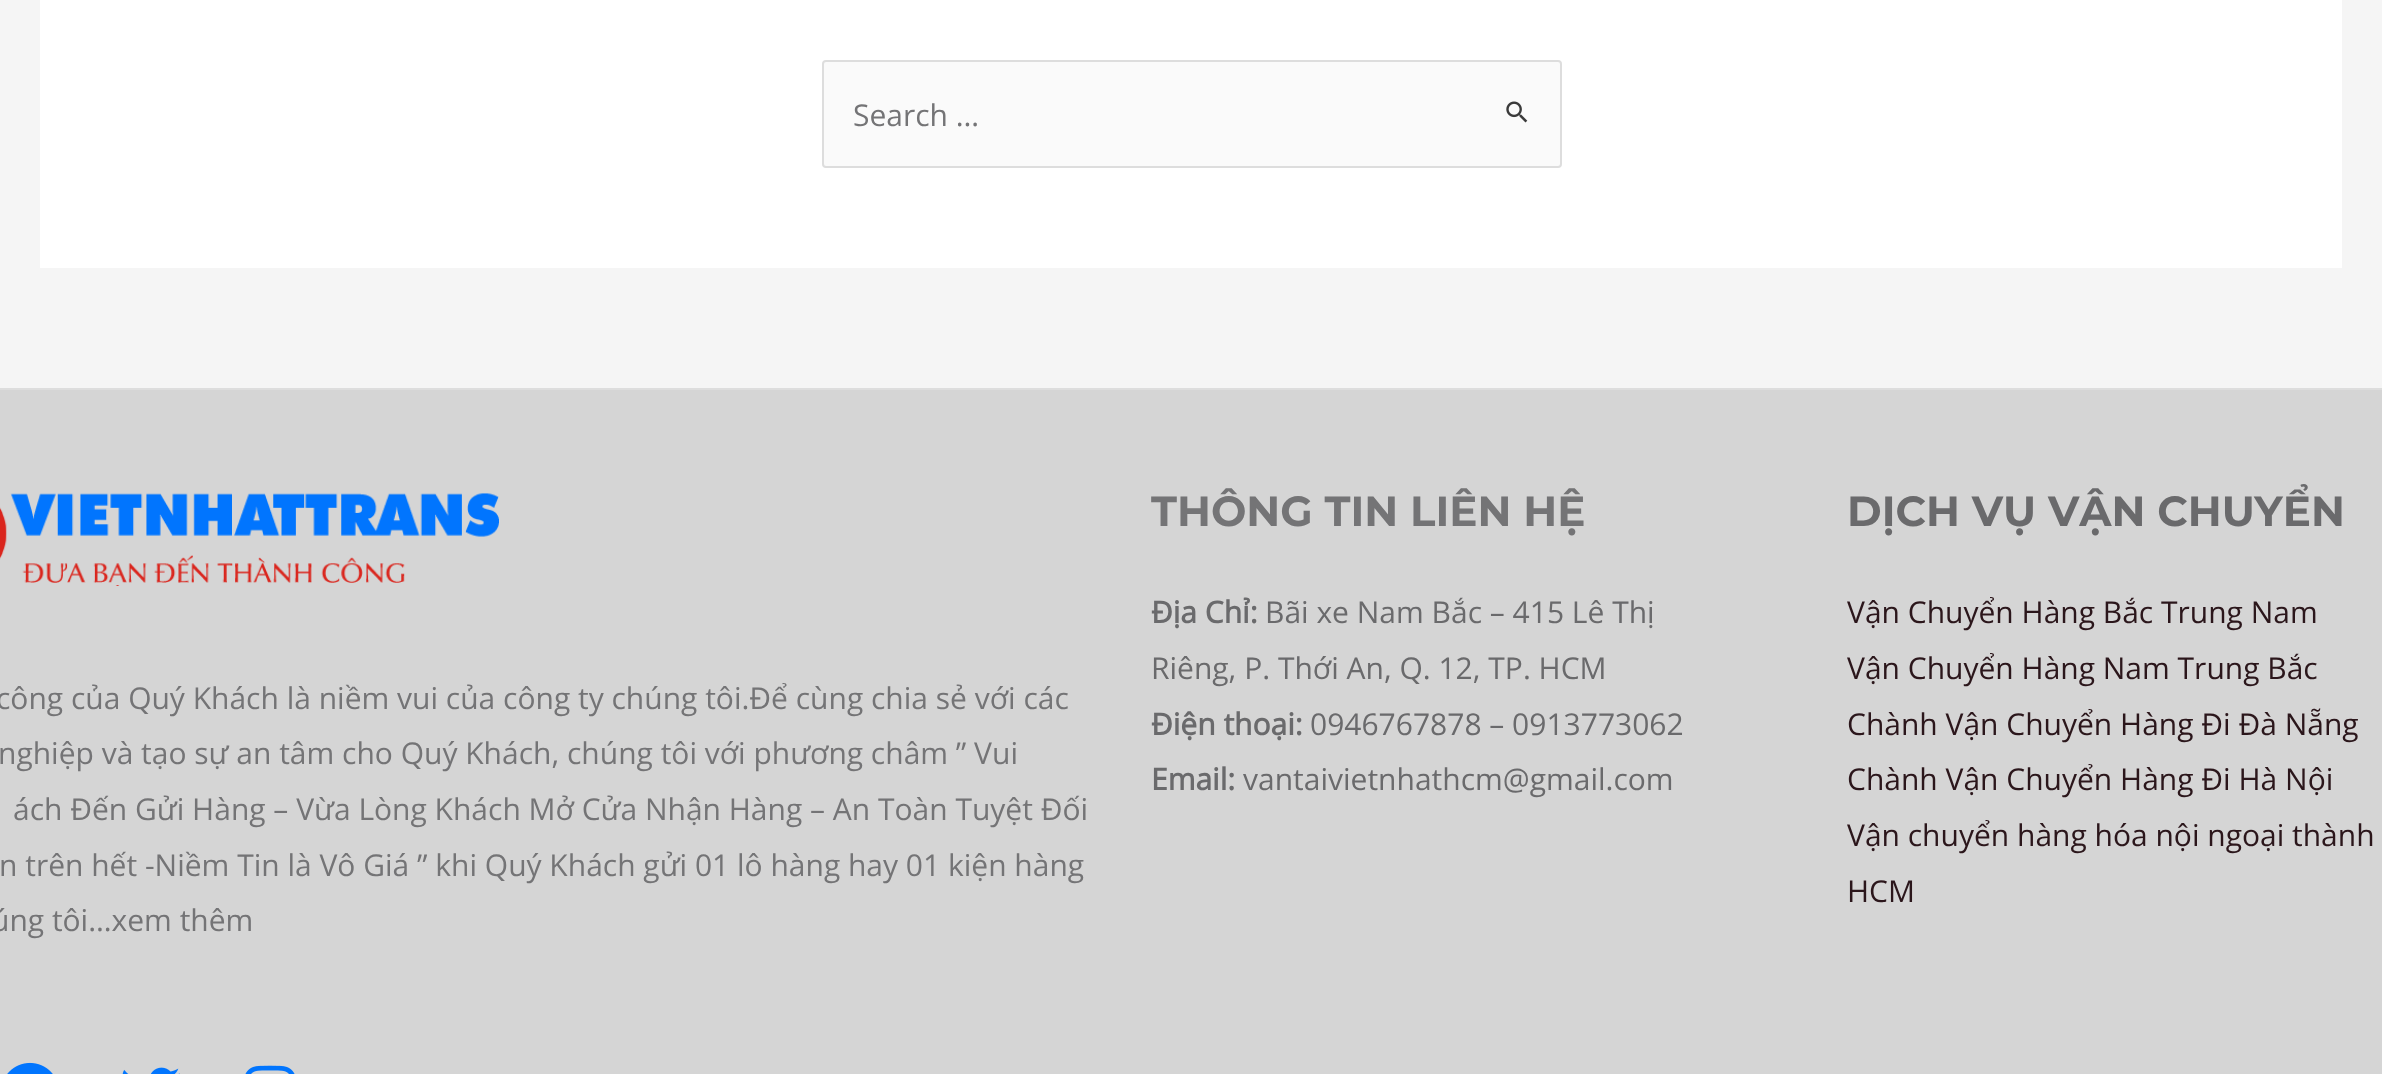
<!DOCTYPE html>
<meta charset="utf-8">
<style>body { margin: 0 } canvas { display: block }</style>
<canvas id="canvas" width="2382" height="1074"></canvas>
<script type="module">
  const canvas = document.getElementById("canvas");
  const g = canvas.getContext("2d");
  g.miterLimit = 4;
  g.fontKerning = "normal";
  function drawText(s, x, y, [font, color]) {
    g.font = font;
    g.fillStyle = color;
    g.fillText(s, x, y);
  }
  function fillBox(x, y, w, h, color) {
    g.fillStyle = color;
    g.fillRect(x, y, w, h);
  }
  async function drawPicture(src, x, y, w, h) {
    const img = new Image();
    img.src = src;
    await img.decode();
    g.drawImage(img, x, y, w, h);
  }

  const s1 = ["30px Open Sans", "#747476"];
  const s2 = ["bold 42px Montserrat", "#747476"];
  const s3 = ["bold 30px Open Sans", "#6A6A6C"];
  const s4 = ["30px Open Sans", "#6A6A6C"];
  const s5 = ["bold 42px Montserrat", "#6A6A6C"];
  const s6 = ["30px Open Sans", "#2B161B"];

  fillBox(0, 0, 2382, 1074, "#F5F5F5");
  fillBox(40, 0, 2302, 268, "#FFFFFF");
  g.fillStyle = "#FAFAFA";
  g.beginPath();
  g.roundRect(823, 61, 738, 106, 3);
  g.fill();
  g.strokeStyle = "#DDDDDD";
  g.lineWidth = 2;
  g.stroke();
  drawText("Search …", 853, 126, s1);
  await drawPicture("pic1.png", 1506, 101, 22, 22);
  fillBox(0, 390, 2382, 684, "#D5D5D5");
  fillBox(0, 388, 2382, 2, "#DDDDDD");
  await drawPicture("pic2.png", 0, 493, 499, 93);
  drawText("công của Quý Khách là niềm vui của công ty chúng tôi.Để cùng chia sẻ với các", -4, 709, s1);
  drawText("nghiệp và tạo sự an tâm cho Quý Khách, chúng tôi với phương châm ” Vui", -2, 764, s1);
  drawText("ách Đến Gửi Hàng – Vừa Lòng Khách Mở Cửa Nhận Hàng – An Toàn Tuyệt Đối", 13, 820, s1);
  drawText("n trên hết -Niềm Tin là Vô Giá ” khi Quý Khách gửi 01 lô hàng hay 01 kiện hàng", -1, 876, s1);
  drawText("úng tôi…xem thêm", -9, 931, s1);
  await drawPicture("pic3.png", 7, 1062, 46, 12);
  await drawPicture("pic4.png", 122, 1067, 58, 7);
  await drawPicture("pic5.png", 245, 1065, 50, 9);
  drawText("THÔNG TIN LIÊN HỆ", 1151, 526, s2);
  drawText("Địa Chỉ:", 1151, 623, s3);
  drawText("Bãi xe Nam Bắc – 415 Lê Thị", 1265, 623, s4);
  drawText("Riêng, P. Thới An, Q. 12, TP. HCM", 1151, 679, s4);
  drawText("Điện thoại:", 1151, 735, s3);
  drawText("0946767878 – 0913773062", 1310, 735, s4);
  drawText("Email:", 1151, 790, s3);
  drawText("vantaivietnhathcm@gmail.com", 1243, 790, s4);
  drawText("DỊCH VỤ VẬN CHUYỂN", 1847, 526, s5);
  drawText("Vận Chuyển Hàng Bắc Trung Nam", 1847, 623, s6);
  drawText("Vận Chuyển Hàng Nam Trung Bắc", 1847, 679, s6);
  drawText("Chành Vận Chuyển Hàng Đi Đà Nẵng", 1847, 735, s6);
  drawText("Chành Vận Chuyển Hàng Đi Hà Nội", 1847, 790, s6);
  drawText("Vận chuyển hàng hóa nội ngoại thành", 1847, 846, s6);
  drawText("HCM", 1847, 902, s6);
</script>
